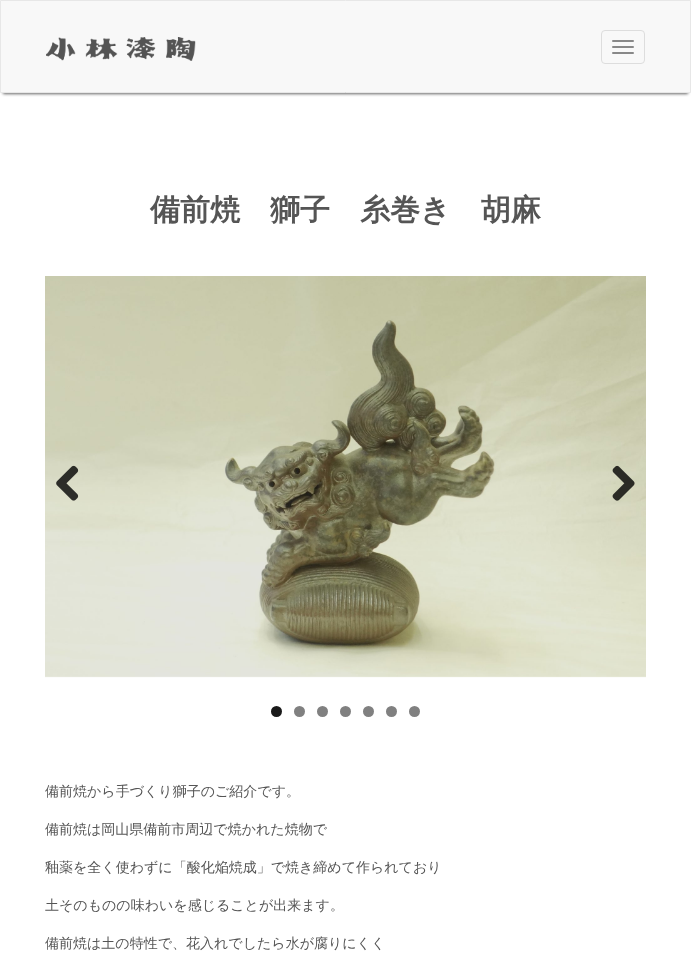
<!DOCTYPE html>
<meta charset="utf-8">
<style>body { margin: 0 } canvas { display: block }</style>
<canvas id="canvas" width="691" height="962"></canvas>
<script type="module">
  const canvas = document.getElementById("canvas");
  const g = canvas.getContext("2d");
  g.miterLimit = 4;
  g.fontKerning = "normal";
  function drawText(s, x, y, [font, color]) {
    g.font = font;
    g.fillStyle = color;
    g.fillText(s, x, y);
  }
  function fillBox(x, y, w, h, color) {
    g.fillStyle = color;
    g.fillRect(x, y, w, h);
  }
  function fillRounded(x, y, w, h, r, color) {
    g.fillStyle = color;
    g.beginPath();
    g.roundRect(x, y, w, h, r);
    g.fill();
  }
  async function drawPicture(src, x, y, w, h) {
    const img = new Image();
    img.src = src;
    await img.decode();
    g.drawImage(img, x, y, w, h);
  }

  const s1 = ["bold 30px WenQuanYi Zen Hei", "#555555"];
  const s2 = ["500 14px WenQuanYi Zen Hei", "#555555"];

  fillBox(0, 0, 691, 962, "#FFFFFF");
  g.fillStyle = "rgba(0, 0, 0, 0.6)";
  g.filter = "blur(1.5px)";
  g.beginPath();
  g.rect(3, 7, 685, 87);
  g.fill();
  g.filter = "none";
  g.fillStyle = "#F8F8F8";
  g.beginPath();
  g.rect(0.5, 0.5, 690, 92);
  g.fill();
  g.strokeStyle = "#E7E7E7";
  g.stroke();
  await drawPicture("pic1.png", 46, 37, 150, 24);
  g.beginPath();
  g.roundRect(601.5, 30.5, 43, 33, 3.5);
  g.strokeStyle = "#DDDDDD";
  g.stroke();
  fillRounded(612, 40, 22, 2, 1, "#888888");
  fillRounded(612, 46, 22, 2, 1, "#888888");
  fillRounded(612, 52, 22, 2, 1, "#888888");
  drawText("備前焼　獅子　糸巻き　胡麻", 150, 220, s1);
  await drawPicture("pic2.png", 45, 276, 601, 402);
  await drawPicture("pic3.png", 56, 465, 23, 36);
  await drawPicture("pic4.png", 612, 465, 23, 36);
  g.fillStyle = "#1A1A1A";
  g.beginPath();
  g.arc(276.5, 711.5, 5.5, 0, Math.PI * 2);
  g.fill();
  g.fillStyle = "#808080";
  g.beginPath();
  g.arc(299.5, 711.5, 5.5, 0, Math.PI * 2);
  g.fill();
  g.beginPath();
  g.arc(322.5, 711.5, 5.5, 0, Math.PI * 2);
  g.fill();
  g.beginPath();
  g.arc(345.5, 711.5, 5.5, 0, Math.PI * 2);
  g.fill();
  g.beginPath();
  g.arc(368.5, 711.5, 5.5, 0, Math.PI * 2);
  g.fill();
  g.beginPath();
  g.arc(391.5, 711.5, 5.5, 0, Math.PI * 2);
  g.fill();
  g.beginPath();
  g.arc(414.5, 711.5, 5.5, 0, Math.PI * 2);
  g.fill();
  drawText("備前焼から手づくり獅子のご紹介です。", 45, 796, s2);
  drawText("備前焼は岡山県備前市周辺で焼かれた焼物で", 45, 834, s2);
  drawText("釉薬を全く使わずに「酸化焔焼成」で焼き締めて作られており", 45, 872, s2);
  drawText("土そのものの味わいを感じることが出来ます。", 45, 910, s2);
  drawText("備前焼は土の特性で、花入れでしたら水が腐りにくく", 45, 948, s2);
</script>
